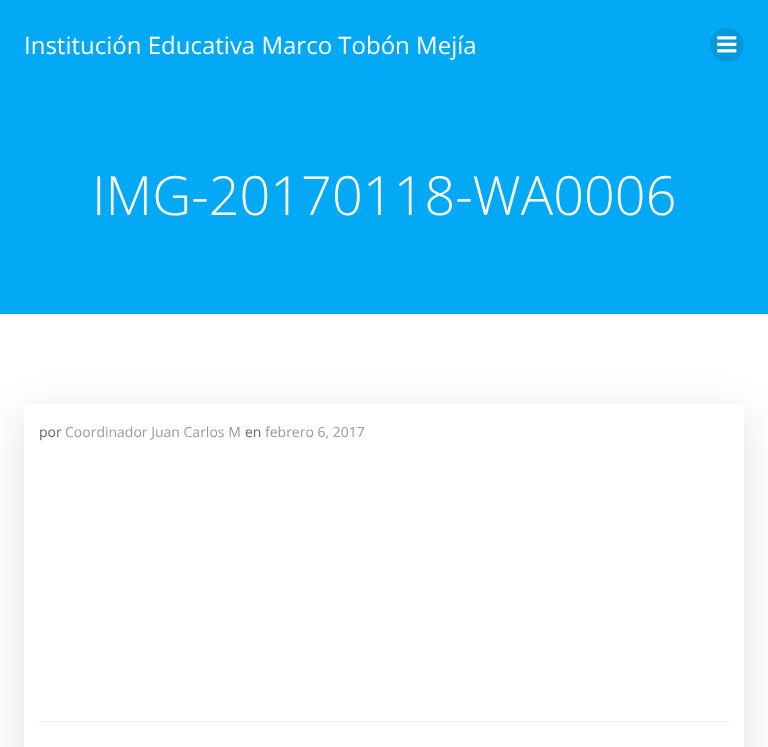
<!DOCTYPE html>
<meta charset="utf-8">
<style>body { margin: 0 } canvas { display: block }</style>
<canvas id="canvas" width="768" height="747"></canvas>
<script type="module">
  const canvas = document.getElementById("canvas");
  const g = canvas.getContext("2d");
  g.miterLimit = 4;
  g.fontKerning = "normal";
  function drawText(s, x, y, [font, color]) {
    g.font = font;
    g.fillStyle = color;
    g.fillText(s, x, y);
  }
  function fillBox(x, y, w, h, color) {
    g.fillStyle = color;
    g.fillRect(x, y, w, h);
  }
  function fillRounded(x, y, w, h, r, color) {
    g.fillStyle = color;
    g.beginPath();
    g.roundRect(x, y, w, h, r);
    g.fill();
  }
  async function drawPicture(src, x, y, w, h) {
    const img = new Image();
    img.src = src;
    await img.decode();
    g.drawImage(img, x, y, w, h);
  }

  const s1 = ["24px Open Sans", "#FFFFFF"];
  const s2 = ["300 54px Open Sans", "#FFFFFF"];
  const s3 = ["14px Open Sans", "#666666"];
  const s4 = ["14px Open Sans", "#999999"];

  fillBox(0, 0, 768, 747, "#FFFFFF");
  fillBox(0, 0, 768, 314, "#03A9F4");
  drawText("Institución Educativa Marco Tobón Mejía", 24, 54, s1);
  g.fillStyle = "#0398DC";
  g.beginPath();
  g.arc(727, 45, 17, 0, Math.PI * 2);
  g.fill();
  await drawPicture("pic1.png", 717, 36, 20, 17);
  drawText("IMG-20170118-WA0006", 92, 215, s2);
  g.fillStyle = "rgba(1, 51, 74, 0.15)";
  g.filter = "blur(20px)";
  g.beginPath();
  g.roundRect(24, 414, 720, 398, 5);
  g.fill();
  g.filter = "none";
  fillRounded(24, 404, 720, 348, 5, "#FFFFFF");
  drawText("por", 39, 437, s3);
  drawText("Coordinador Juan Carlos M", 65, 437, s4);
  drawText("en", 245, 437, s3);
  drawText("febrero 6, 2017", 265, 437, s4);
  fillBox(39, 721, 690, 1, "#EEEEEE");
</script>
